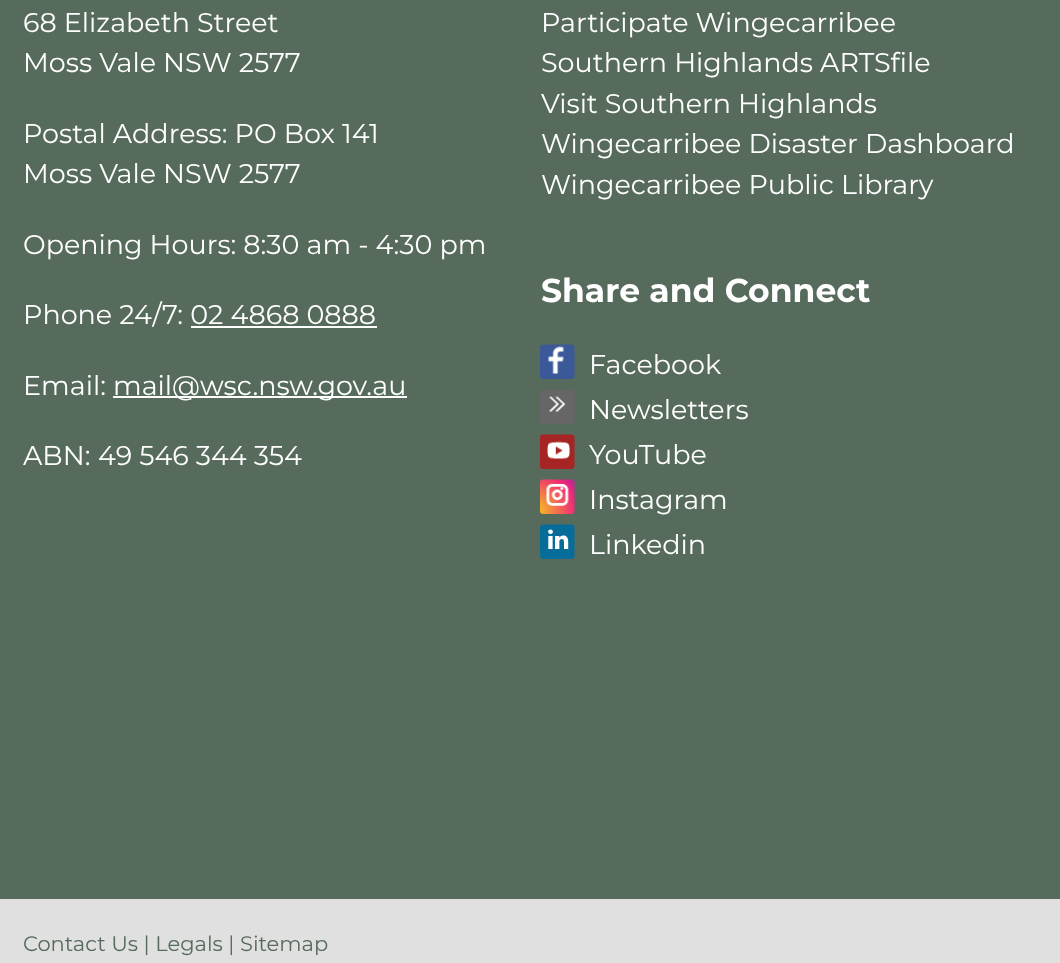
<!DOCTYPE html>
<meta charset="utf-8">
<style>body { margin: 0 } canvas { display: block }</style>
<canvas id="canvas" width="1060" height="963"></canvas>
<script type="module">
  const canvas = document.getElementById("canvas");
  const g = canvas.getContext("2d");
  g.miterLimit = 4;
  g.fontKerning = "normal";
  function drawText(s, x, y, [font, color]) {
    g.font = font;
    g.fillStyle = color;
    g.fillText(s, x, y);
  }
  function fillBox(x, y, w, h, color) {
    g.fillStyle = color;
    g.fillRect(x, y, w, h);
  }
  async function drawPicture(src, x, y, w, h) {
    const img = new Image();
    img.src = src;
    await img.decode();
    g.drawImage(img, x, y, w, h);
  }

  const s1 = ["27px Montserrat", "#FFFFFF"];
  const s2 = ["bold 33px Montserrat", "#FFFFFF"];
  const s3 = ["21px Montserrat", "#576B5C"];

  fillBox(0, 0, 1060, 963, "#576B5C");
  drawText("68 Elizabeth Street", 23, 32, s1);
  drawText("Moss Vale NSW 2577", 23, 72, s1);
  drawText("Postal Address: PO Box 141", 23, 143, s1);
  drawText("Moss Vale NSW 2577", 23, 183, s1);
  drawText("Opening Hours: 8:30 am - 4:30 pm", 23, 254, s1);
  drawText("Phone 24/7: 02 4868 0888", 23, 324, s1);
  fillBox(191, 326, 186, 2, "#FFFFFF");
  drawText("Email:", 23, 395, s1);
  fillBox(113, 396, 294, 2, "#FFFFFF");
  drawText("mail@wsc.nsw.gov.au", 113, 395, s1);
  drawText("ABN:", 23, 465, s1);
  drawText("49 546 344 354", 98, 465, s1);
  drawText("Participate Wingecarribee", 541, 32, s1);
  drawText("Southern Highlands ARTSfile", 541, 72, s1);
  drawText("Visit Southern Highlands", 541, 113, s1);
  drawText("Wingecarribee Disaster Dashboard", 541, 153, s1);
  drawText("Wingecarribee Public Library", 541, 194, s1);
  drawText("Share and Connect", 541, 302, s2);
  await drawPicture("pic1.png", 540, 344, 35, 35);
  drawText("Facebook", 589, 374, s1);
  await drawPicture("pic2.png", 540, 389, 35, 35);
  drawText("Newsletters", 589, 419, s1);
  await drawPicture("pic3.png", 540, 434, 35, 35);
  drawText("YouTube", 589, 464, s1);
  await drawPicture("pic4.png", 540, 479, 35, 35);
  drawText("Instagram", 589, 509, s1);
  await drawPicture("pic5.png", 540, 524, 35, 35);
  drawText("Linkedin", 589, 554, s1);
  fillBox(0, 899, 1060, 64, "#E0E0E0");
  drawText("Contact Us | Legals | Sitemap", 23, 951, s3);
</script>
